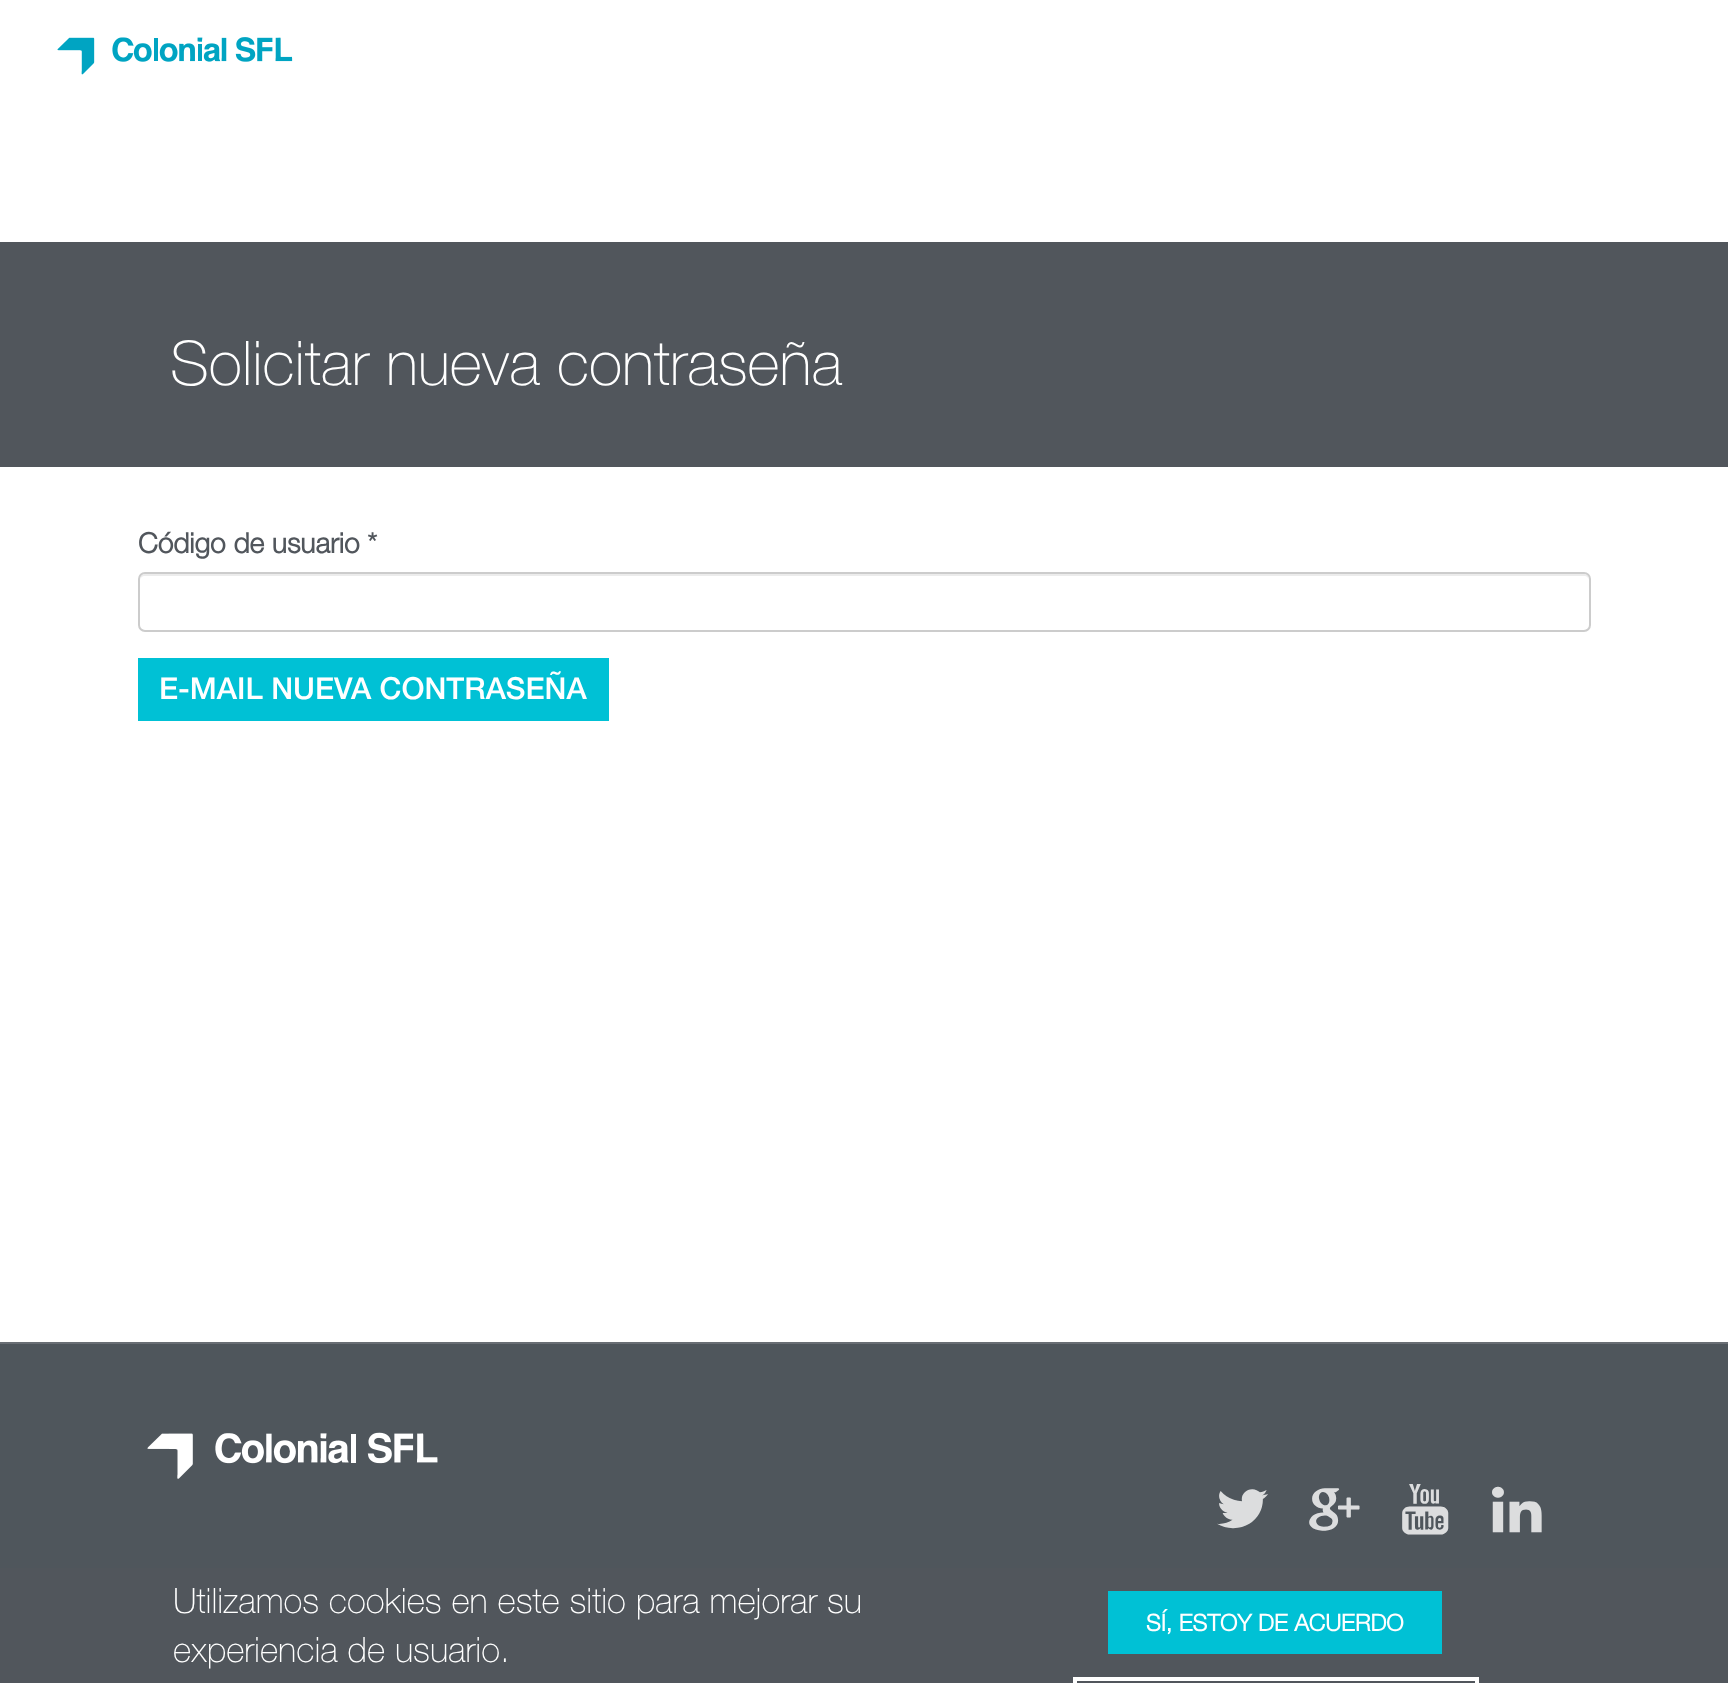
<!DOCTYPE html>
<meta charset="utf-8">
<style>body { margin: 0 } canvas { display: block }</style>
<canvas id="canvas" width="1728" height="1683"></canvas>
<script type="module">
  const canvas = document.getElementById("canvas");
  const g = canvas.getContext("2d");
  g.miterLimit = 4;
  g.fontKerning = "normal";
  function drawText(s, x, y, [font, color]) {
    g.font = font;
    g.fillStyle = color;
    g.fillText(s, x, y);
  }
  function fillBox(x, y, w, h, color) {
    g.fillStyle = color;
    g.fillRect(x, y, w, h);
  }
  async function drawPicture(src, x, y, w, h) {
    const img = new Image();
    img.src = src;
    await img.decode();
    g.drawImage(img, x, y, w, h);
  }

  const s1 = ["100 61.6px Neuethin", "#FFFFFF"];
  const s2 = ["bold 28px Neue", "#51565C"];
  const s3 = ["500 30.3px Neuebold", "#FFFFFF"];
  const s4 = ["51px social", "#DCDDDE"];
  const s5 = ["100 35px Neuethin", "#FFFFFF"];
  const s6 = ["bold 23.25px Neue", "#FFFFFF"];

  fillBox(0, 0, 1728, 1683, "#FFFFFF");
  await drawPicture("pic1.png", 57, 37, 236, 38);
  fillBox(0, 242, 1728, 225, "#51565C");
  drawText("Solicitar nueva contraseña", 170, 385, s1);
  drawText("Código de usuario *", 138, 553, s2);
  g.fillStyle = "#ECECEC";
  g.beginPath();
  g.moveTo(145, 576);
  g.lineTo(1584, 576);
  g.bezierCurveTo(1587, 576, 1589, 578, 1589, 581);
  g.bezierCurveTo(1589, 578, 1588, 574, 1584, 574);
  g.lineTo(145, 574);
  g.bezierCurveTo(141, 574, 140, 578, 140, 581);
  g.bezierCurveTo(140, 578, 142, 576, 145, 576);
  g.closePath();
  g.fill();
  g.beginPath();
  g.roundRect(139, 573, 1451, 58, 6);
  g.strokeStyle = "#CCCCCC";
  g.lineWidth = 2;
  g.stroke();
  fillBox(138, 658, 471, 63, "#00C1D5");
  drawText("E-MAIL NUEVA CONTRASEÑA", 159, 699, s3);
  fillBox(0, 1344, 1728, 224, "#4F565C");
  fillBox(0, 1342, 1728, 2, "#696E74");
  await drawPicture("pic2.png", 147, 1432, 291, 47);
  drawText("c", 1217, 1535, s4);
  drawText("b", 1309, 1535, s4);
  drawText("e", 1400, 1535, s4);
  drawText("d", 1492, 1535, s4);
  fillBox(0, 1568, 1728, 115, "#51565C");
  drawText("Utilizamos cookies en este sitio para mejorar su", 173, 1613, s5);
  drawText("experiencia de usuario.", 173, 1662, s5);
  fillBox(1108, 1591, 334, 63, "#00C1D5");
  drawText("SÍ, ESTOY DE ACUERDO", 1146, 1631, s6);
  g.strokeStyle = "#FFFFFF";
  g.lineWidth = 4;
  g.strokeRect(1075, 1679, 402, 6);
</script>
